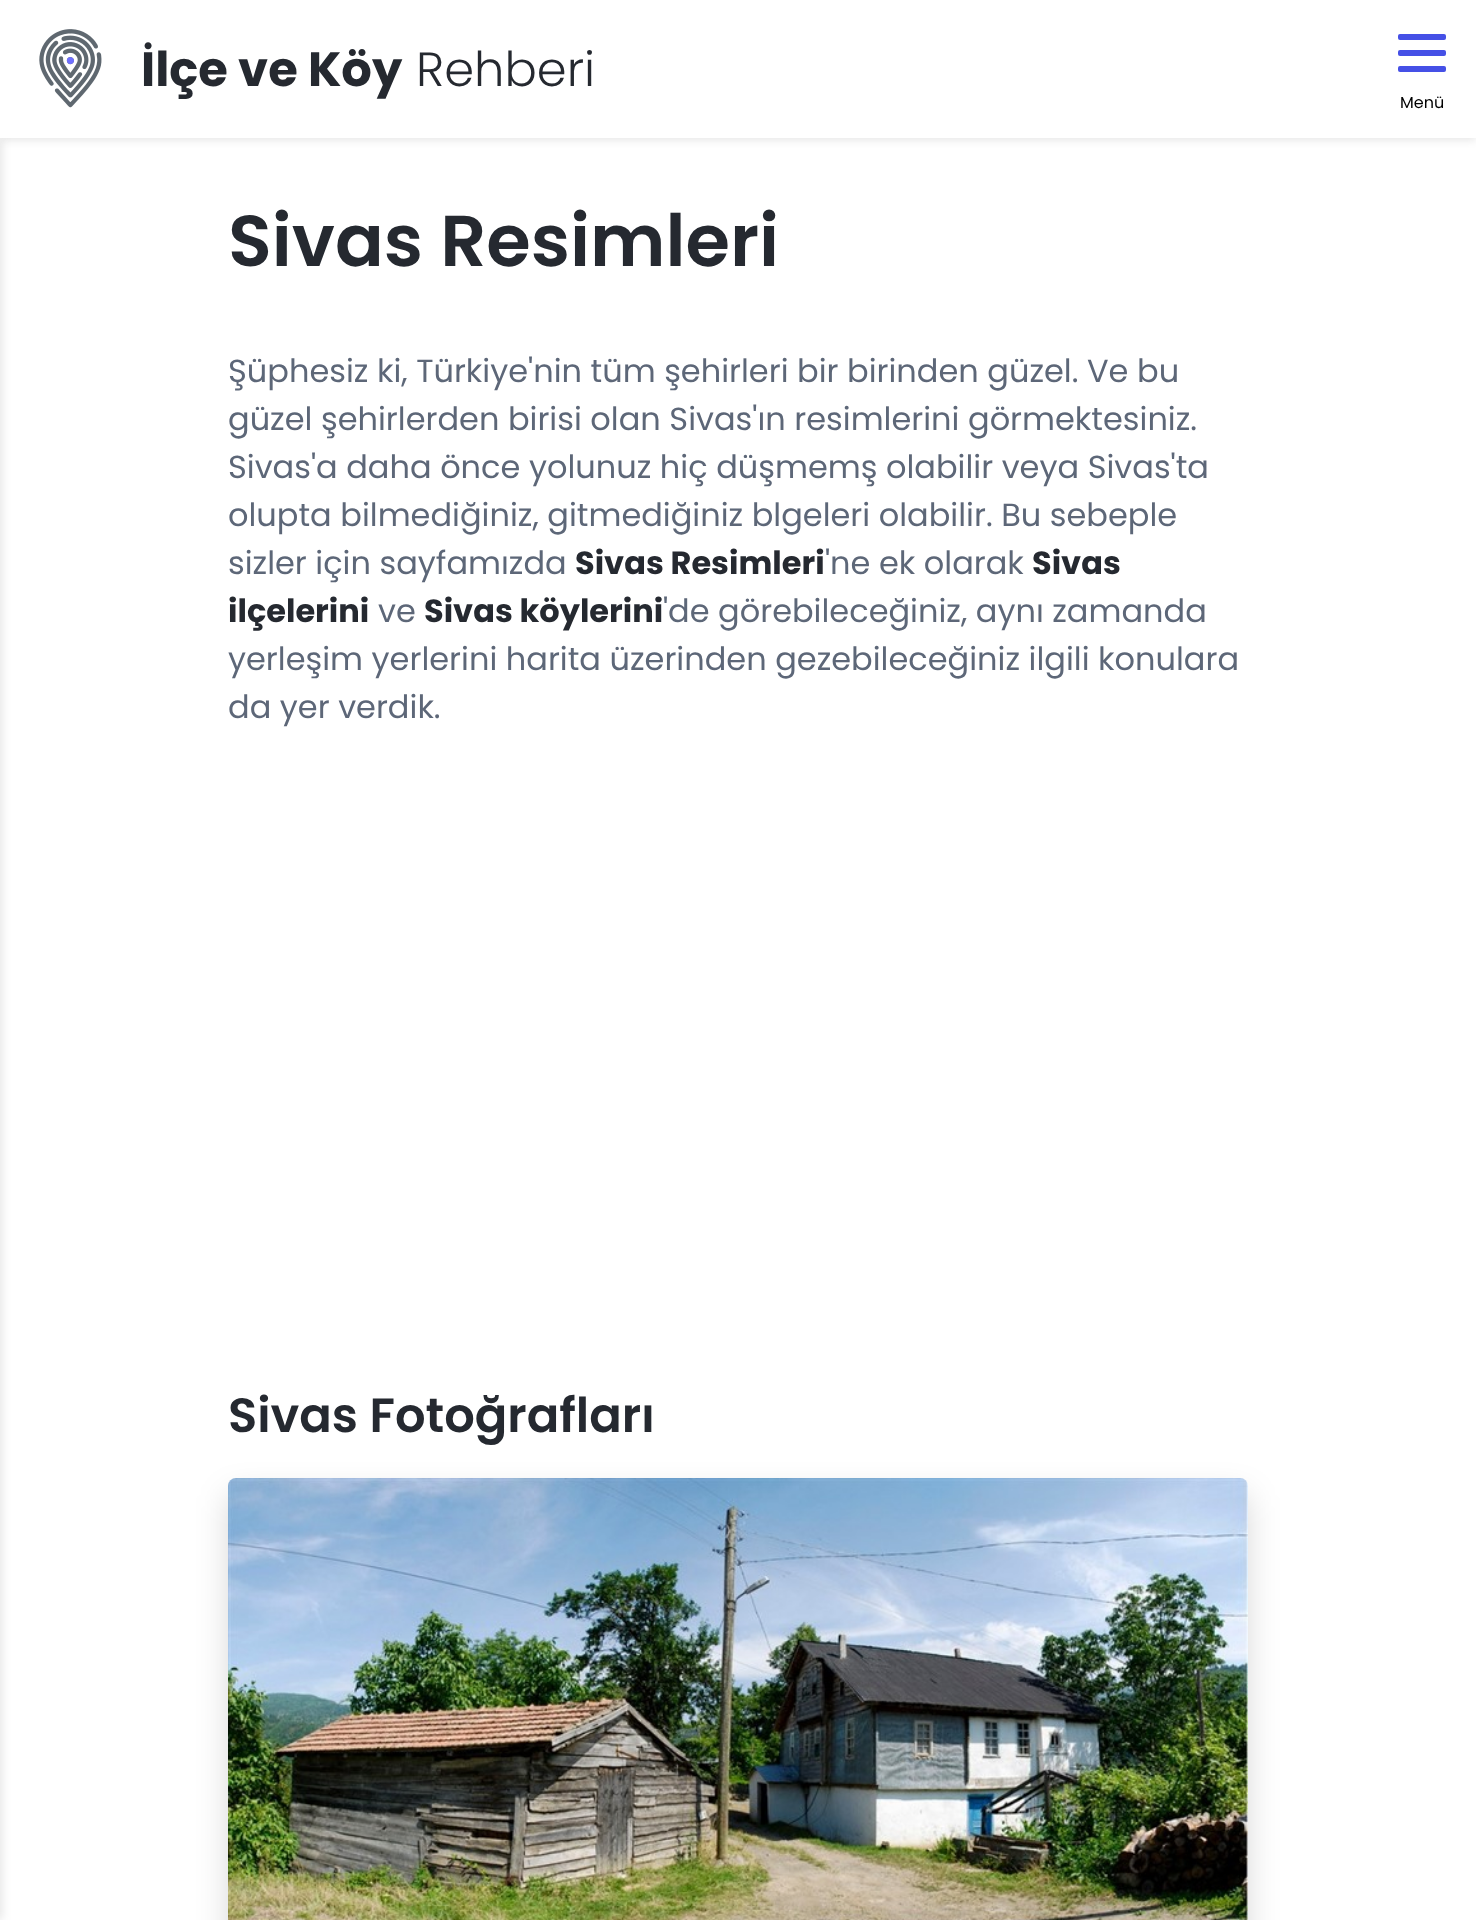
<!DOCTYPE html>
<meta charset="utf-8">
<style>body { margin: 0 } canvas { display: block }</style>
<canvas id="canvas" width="1476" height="1920"></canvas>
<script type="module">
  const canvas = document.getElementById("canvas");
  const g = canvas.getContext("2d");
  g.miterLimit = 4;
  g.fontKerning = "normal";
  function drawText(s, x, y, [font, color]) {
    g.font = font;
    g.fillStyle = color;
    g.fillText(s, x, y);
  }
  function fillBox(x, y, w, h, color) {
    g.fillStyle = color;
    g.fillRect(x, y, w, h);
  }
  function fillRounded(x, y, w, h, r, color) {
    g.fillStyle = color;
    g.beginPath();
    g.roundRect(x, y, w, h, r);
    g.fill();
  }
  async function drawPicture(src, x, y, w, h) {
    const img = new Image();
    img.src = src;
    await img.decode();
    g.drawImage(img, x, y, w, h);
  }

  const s1 = ["bold 48px Poppins", "#252930"];
  const s2 = ["300 48px Poppins", "#252930"];
  const s3 = ["16px Poppins", "#000000"];
  const s4 = ["600 72px Poppins", "#252930"];
  const s5 = ["32px Poppins", "#5D6778"];
  const s6 = ["bold 32px Poppins", "#252930"];
  const s7 = ["600 48px Poppins", "#252930"];

  fillBox(0, 0, 1476, 1920, "#FFFFFF");
  g.fillStyle = "rgba(0, 0, 0, 0.1)";
  g.filter = "blur(4px)";
  g.beginPath();
  g.rect(0, 2, 1476, 138);
  g.fill();
  g.filter = "none";
  g.filter = "blur(5px)";
  g.beginPath();
  g.rect(-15, 138, 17, 1782);
  g.fill();
  g.filter = "none";
  fillBox(0, 0, 1476, 138, "#FFFFFF");
  await drawPicture("pic1.png", 39, 29, 63, 79);
  drawText("İlçe ve Köy", 141, 86, s1);
  drawText("Rehberi", 416, 86, s2);
  fillRounded(1398, 34, 48, 6, 2, "#4550E6");
  fillRounded(1398, 50, 48, 6, 2, "#4550E6");
  fillRounded(1398, 66, 48, 6, 2, "#4550E6");
  drawText("Menü", 1400, 108, s3);
  drawText("Sivas Resimleri", 228, 266, s4);
  drawText("Şüphesiz ki, Türkiye'nin tüm şehirleri bir birinden güzel. Ve bu", 228, 382, s5);
  drawText("güzel şehirlerden birisi olan Sivas'ın resimlerini görmektesiniz.", 228, 430, s5);
  drawText("Sivas'a daha önce yolunuz hiç düşmemş olabilir veya Sivas'ta", 228, 478, s5);
  drawText("olupta bilmediğiniz, gitmediğiniz blgeleri olabilir. Bu sebeple", 228, 526, s5);
  drawText("sizler için sayfamızda", 228, 574, s5);
  drawText("Sivas Resimleri", 575, 574, s6);
  drawText("'ne ek olarak", 825, 574, s5);
  drawText("Sivas", 1032, 574, s6);
  drawText("ilçelerini", 228, 622, s6);
  drawText("ve", 378, 622, s5);
  drawText("Sivas köylerini", 424, 622, s6);
  drawText("'de görebileceğiniz, aynı zamanda", 663, 622, s5);
  drawText("yerleşim yerlerini harita üzerinden gezebileceğiniz ilgili konulara", 228, 670, s5);
  drawText("da yer verdik.", 228, 718, s5);
  drawText("Sivas Fotoğrafları", 228, 1432, s7);
  g.fillStyle = "rgba(0, 0, 0, 0.15)";
  g.filter = "blur(16px)";
  g.beginPath();
  g.roundRect(228, 1494, 1020, 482, 8);
  g.fill();
  g.filter = "none";
  await drawPicture("pic2.png", 228, 1478, 1020, 442);
</script>
